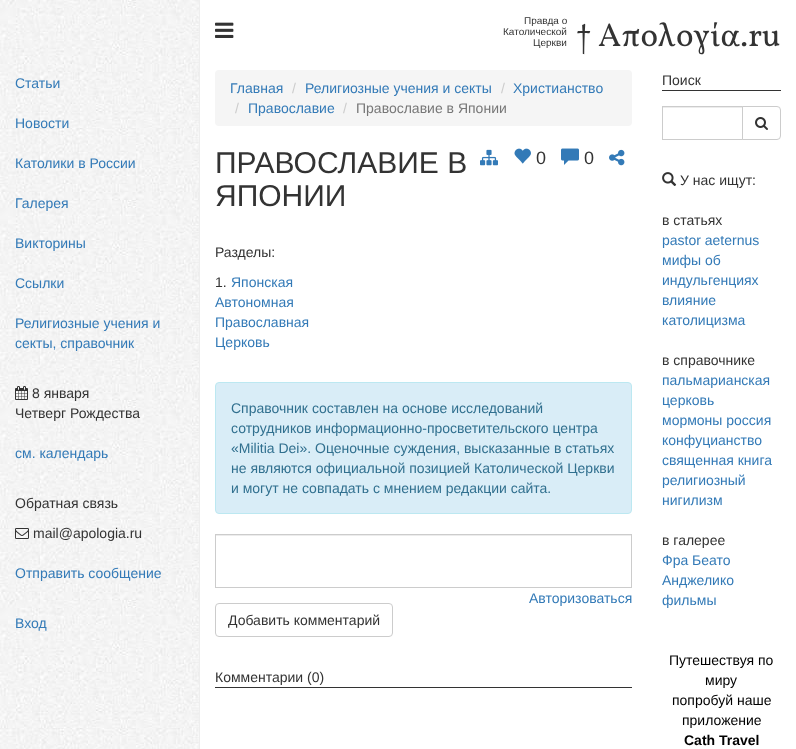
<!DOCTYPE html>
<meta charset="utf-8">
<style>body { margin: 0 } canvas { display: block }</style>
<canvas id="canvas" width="796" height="749"></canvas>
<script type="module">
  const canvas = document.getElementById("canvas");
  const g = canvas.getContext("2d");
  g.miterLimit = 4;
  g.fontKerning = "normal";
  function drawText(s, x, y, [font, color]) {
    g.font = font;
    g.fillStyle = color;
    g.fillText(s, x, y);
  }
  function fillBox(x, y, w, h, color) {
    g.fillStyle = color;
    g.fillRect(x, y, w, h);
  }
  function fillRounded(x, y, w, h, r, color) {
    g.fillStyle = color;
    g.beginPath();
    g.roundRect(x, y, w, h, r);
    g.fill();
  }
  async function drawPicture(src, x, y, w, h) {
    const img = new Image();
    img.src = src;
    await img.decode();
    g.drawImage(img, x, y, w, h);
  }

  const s1 = ["14px Liberation Sans", "#337AB7"];
  const s2 = ["14px Liberation Sans", "#333333"];
  const s3 = ["10px Liberation Sans", "#333333"];
  const s4 = ["33px Vollkorn", "#333333"];
  const s5 = ["14px Liberation Sans", "#CCCCCC"];
  const s6 = ["14px Liberation Sans", "#777777"];
  const s7 = ["30px Liberation Sans", "#333333"];
  const s8 = ["18px Liberation Sans", "#333333"];
  const s9 = ["14px Liberation Sans", "#31708F"];
  const s10 = ["14px Liberation Sans", "#000000"];
  const s11 = ["bold 14px Liberation Sans", "#000000"];

  fillBox(0, 0, 796, 749, "#FFFFFF");
  await drawPicture("pic1.png", 0, 0, 199, 749);
  fillBox(199, 0, 1, 749, "#EEEEEE");
  drawText("Статьи", 15, 88, s1);
  drawText("Новости", 15, 128, s1);
  drawText("Католики в России", 15, 168, s1);
  drawText("Галерея", 15, 208, s1);
  drawText("Викторины", 15, 248, s1);
  drawText("Ссылки", 15, 288, s1);
  drawText("Религиозные учения и", 15, 328, s1);
  drawText("секты, справочник", 15, 348, s1);
  await drawPicture("pic2.png", 15, 386, 13, 14);
  drawText("8 января", 32, 398, s2);
  drawText("Четверг Рождества", 15, 418, s2);
  drawText("см. календарь", 15, 458, s1);
  drawText("Обратная связь", 15, 508, s2);
  await drawPicture("pic3.png", 15, 528, 14, 11);
  drawText("mail@apologia.ru", 33, 538, s2);
  drawText("Отправить сообщение", 15, 578, s1);
  drawText("Вход", 15, 628, s1);
  await drawPicture("pic4.png", 215, 22, 19, 16);
  drawText("Правда о", 524, 24, s3);
  drawText("Католической", 503, 35, s3);
  drawText("Церкви", 533, 46, s3);
  drawText("† Απολογία.ru", 576, 46, s4);
  fillRounded(215, 70, 417, 56, 4, "#F5F5F5");
  drawText("Главная", 230, 93, s1);
  drawText("/", 292, 93, s5);
  drawText("Религиозные учения и секты", 305, 93, s1);
  drawText("/", 501, 93, s5);
  drawText("Христианство", 513, 93, s1);
  drawText("/", 235, 113, s5);
  drawText("Православие", 248, 113, s1);
  drawText("/", 343, 113, s5);
  drawText("Православие в Японии", 356, 113, s6);
  drawText("ПРАВОСЛАВИЕ В", 215, 173, s7);
  drawText("ЯПОНИИ", 215, 206, s7);
  await drawPicture("pic5.png", 480, 149, 18, 17);
  await drawPicture("pic6.png", 514, 148, 17, 16);
  drawText("0", 536, 164, s8);
  await drawPicture("pic7.png", 561, 148, 18, 17);
  drawText("0", 584, 164, s8);
  await drawPicture("pic8.png", 609, 149, 16, 17);
  drawText("Разделы:", 215, 257, s2);
  drawText("1.", 215, 287, s2);
  drawText("Японская", 231, 287, s1);
  drawText("Автономная", 215, 307, s1);
  drawText("Православная", 215, 327, s1);
  drawText("Церковь", 215, 347, s1);
  g.fillStyle = "#D9EDF7";
  g.beginPath();
  g.roundRect(215.5, 382.5, 416, 131, 3.5);
  g.fill();
  g.strokeStyle = "#BCE8F1";
  g.stroke();
  drawText("Справочник составлен на основе исследований", 231, 413, s9);
  drawText("сотрудников информационно-просветительского центра", 231, 433, s9);
  drawText("«Militia Dei». Оценочные суждения, высказанные в статьях", 231, 453, s9);
  drawText("не являются официальной позицией Католической Церкви", 231, 473, s9);
  drawText("и могут не совпадать с мнением редакции сайта.", 231, 493, s9);
  fillBox(216, 535, 415, 1, "#ECECEC");
  g.strokeStyle = "#CCCCCC";
  g.strokeRect(215.5, 534.5, 416, 53);
  drawText("Авторизоваться", 529, 603, s1);
  g.beginPath();
  g.roundRect(215.5, 603.5, 177, 33, 3.5);
  g.stroke();
  drawText("Добавить комментарий", 228, 625, s2);
  fillBox(215, 687, 417, 1, "#333333");
  drawText("Комментарии (0)", 215, 682, s2);
  fillBox(662, 90, 119, 1, "#333333");
  drawText("Поиск", 662, 85, s2);
  fillBox(663, 107, 79, 1, "#ECECEC");
  g.strokeRect(662.5, 106.5, 80, 33);
  g.fillStyle = "#FFFFFF";
  g.beginPath();
  g.roundRect(742.5, 106.5, 38, 33, [0, 3.5, 3.5, 0]);
  g.fill();
  g.stroke();
  await drawPicture("pic9.png", 755, 117, 13, 13);
  await drawPicture("pic10.png", 662, 172, 15, 14);
  drawText("У нас ищут:", 680, 185, s2);
  drawText("в статьях", 662, 225, s2);
  drawText("pastor aeternus", 662, 245, s1);
  drawText("мифы об", 662, 265, s1);
  drawText("индульгенциях", 662, 285, s1);
  drawText("влияние", 662, 305, s1);
  drawText("католицизма", 662, 325, s1);
  drawText("в справочнике", 662, 365, s2);
  drawText("пальмарианская", 662, 385, s1);
  drawText("церковь", 662, 405, s1);
  drawText("мормоны россия", 662, 425, s1);
  drawText("конфуцианство", 662, 445, s1);
  drawText("священная книга", 662, 465, s1);
  drawText("религиозный", 662, 485, s1);
  drawText("нигилизм", 662, 505, s1);
  drawText("в галерее", 662, 545, s2);
  drawText("Фра Беато", 662, 565, s1);
  drawText("Анджелико", 662, 585, s1);
  drawText("фильмы", 662, 605, s1);
  drawText("Путешествуя по", 669, 665, s10);
  drawText("миру", 705, 685, s10);
  drawText("попробуй наше", 672, 705, s10);
  drawText("приложение", 682, 725, s10);
  drawText("Cath Travel", 684, 745, s11);
</script>
